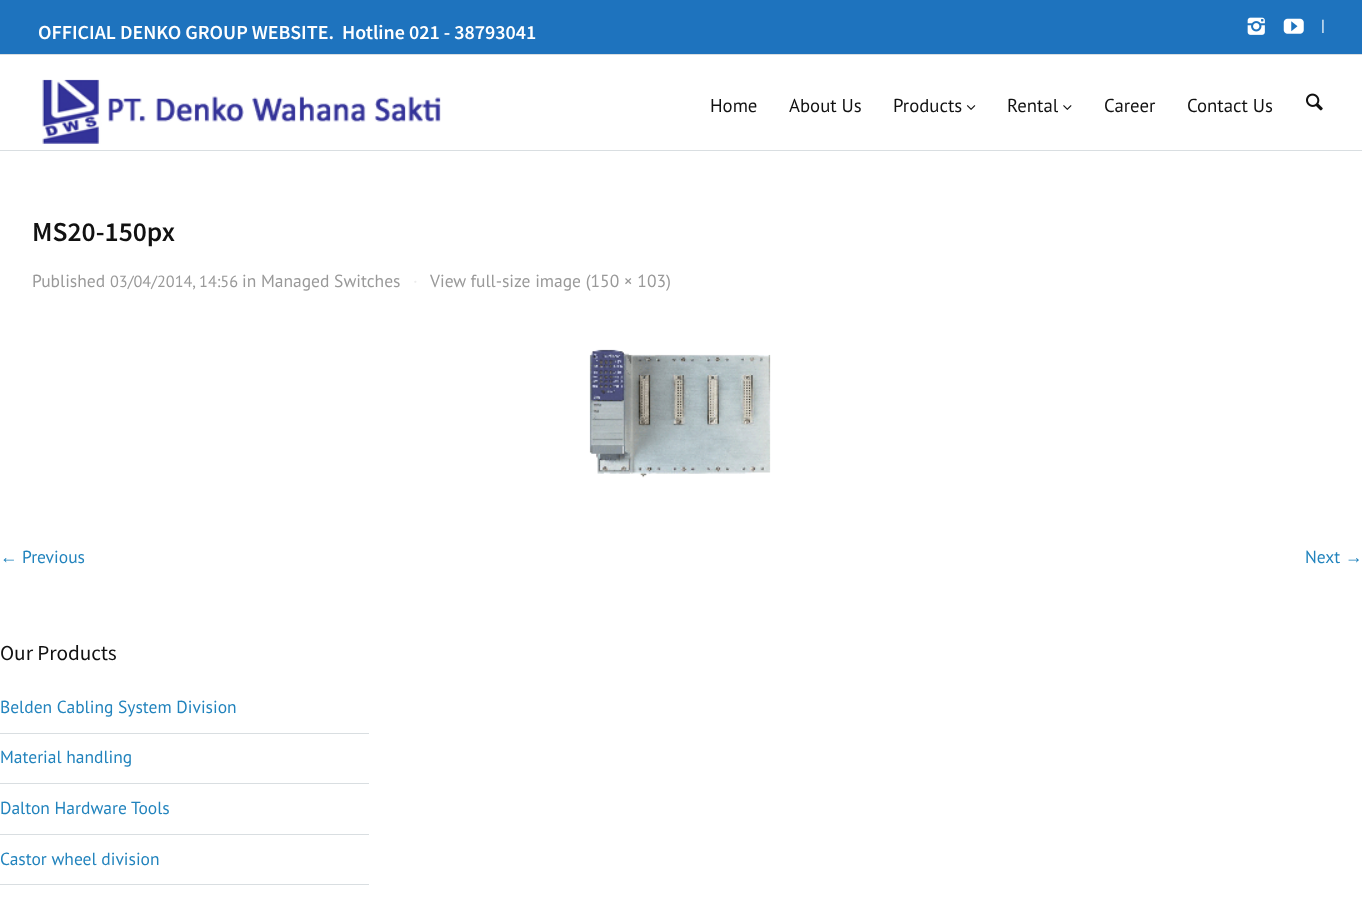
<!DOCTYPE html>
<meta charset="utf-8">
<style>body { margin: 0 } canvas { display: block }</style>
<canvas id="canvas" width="1362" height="907"></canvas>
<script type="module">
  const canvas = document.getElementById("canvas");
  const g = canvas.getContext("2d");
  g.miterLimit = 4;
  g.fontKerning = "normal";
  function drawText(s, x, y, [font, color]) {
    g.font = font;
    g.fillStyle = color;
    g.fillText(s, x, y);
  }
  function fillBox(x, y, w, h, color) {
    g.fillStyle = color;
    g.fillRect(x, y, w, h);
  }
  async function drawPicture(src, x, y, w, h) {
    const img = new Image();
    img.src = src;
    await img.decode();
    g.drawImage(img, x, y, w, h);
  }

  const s1 = ["600 20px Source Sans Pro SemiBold", "#FFFFFF"];
  const s2 = ["16.25px PT Sans", "#FFFFFF"];
  const s3 = ["18.75px PT Sans", "#111111"];
  const s4 = ["600 27.5px Source Sans Pro SemiBold", "#111111"];
  const s5 = ["17.5px PT Sans", "#999999"];
  const s6 = ["16.25px PT Sans", "#999999"];
  const s7 = ["17.5px PT Sans", "#ECECEC"];
  const s8 = ["17.5px Liberation Sans", "#2183BD"];
  const s9 = ["17.5px PT Sans", "#2183BD"];
  const s10 = ["21.25px Source Sans Pro", "#111111"];

  fillBox(0, 0, 1362, 907, "#FFFFFF");
  fillBox(0, 0, 1362, 54, "#1E73BE");
  fillBox(0, 54, 1362, 1, "#D9DEE1");
  drawText("OFFICIAL DENKO GROUP WEBSITE.  Hotline 021 - 38793041", 38, 39, s1);
  await drawPicture("pic1.png", 1247, 17, 18, 18);
  await drawPicture("pic2.png", 1283, 18, 21, 16);
  drawText("|", 1321, 31, s2);
  fillBox(0, 150, 1362, 1, "#D9DEE1");
  await drawPicture("pic3.png", 42, 79, 399, 65);
  drawText("Home", 710, 112, s3);
  drawText("About Us", 789, 112, s3);
  drawText("Products", 893, 112, s3);
  await drawPicture("pic4.png", 966, 105, 10, 5);
  drawText("Rental", 1007, 112, s3);
  await drawPicture("pic5.png", 1063, 105, 9, 5);
  drawText("Career", 1104, 112, s3);
  drawText("Contact Us", 1187, 112, s3);
  await drawPicture("pic6.png", 1306, 93, 17, 18);
  drawText("MS20-150px", 32, 241, s4);
  drawText("Published", 32, 287, s5);
  drawText("03/04/2014, 14:56", 110, 287, s6);
  drawText("in Managed Switches", 242, 287, s5);
  drawText("·", 413, 287, s7);
  drawText("View full-size image (150 × 103)", 430, 287, s5);
  await drawPicture("pic7.png", 589, 349, 182, 129);
  drawText("←", 0, 563, s8);
  drawText("Previous", 22, 563, s9);
  drawText("Next", 1305, 563, s9);
  drawText("→", 1345, 563, s8);
  drawText("Our Products", 0, 660, s10);
  drawText("Belden Cabling System Division", 0, 713, s9);
  fillBox(0, 733, 369, 1, "#D9DEE1");
  drawText("Material handling", 0, 763, s9);
  fillBox(0, 783, 369, 1, "#D9DEE1");
  drawText("Dalton Hardware Tools", 0, 814, s9);
  fillBox(0, 834, 369, 1, "#D9DEE1");
  drawText("Castor wheel division", 0, 865, s9);
  fillBox(0, 884, 369, 1, "#D9DEE1");
</script>
